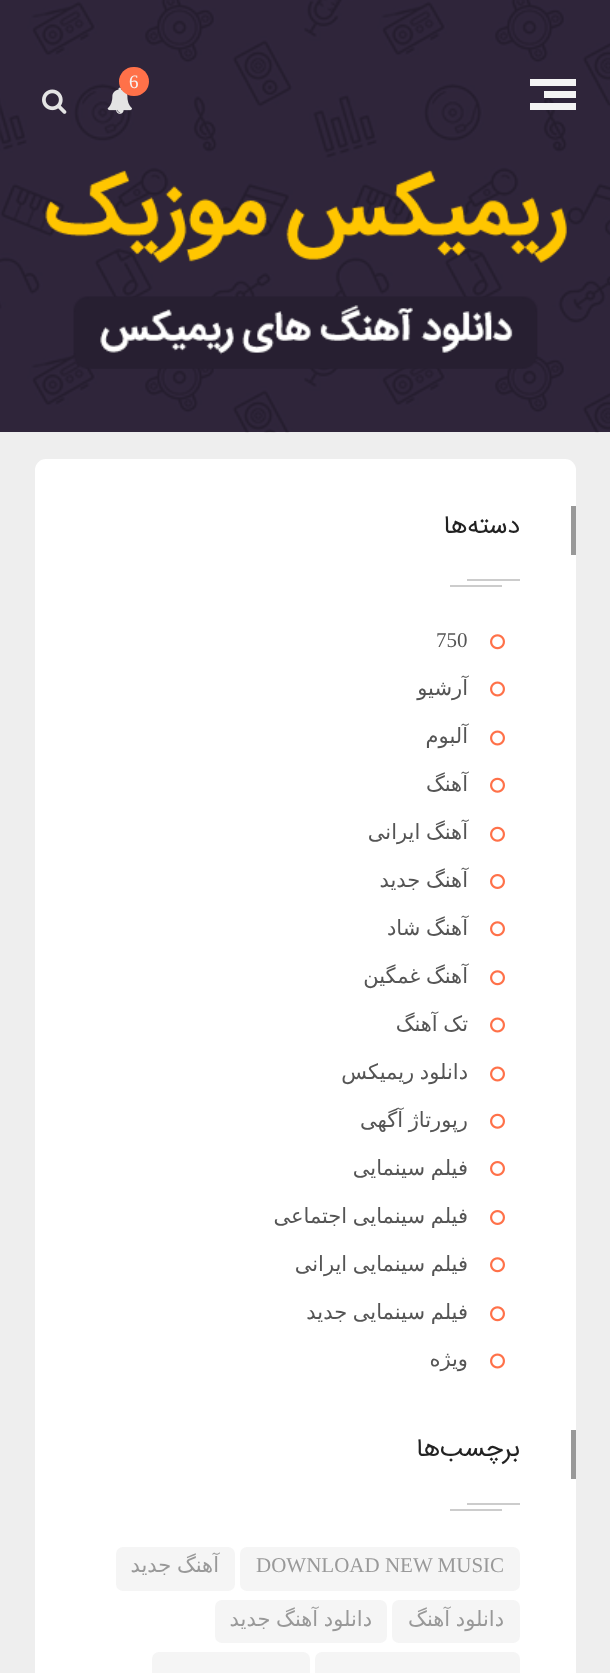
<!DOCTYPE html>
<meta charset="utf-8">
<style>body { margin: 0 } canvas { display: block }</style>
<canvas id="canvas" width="610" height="1673"></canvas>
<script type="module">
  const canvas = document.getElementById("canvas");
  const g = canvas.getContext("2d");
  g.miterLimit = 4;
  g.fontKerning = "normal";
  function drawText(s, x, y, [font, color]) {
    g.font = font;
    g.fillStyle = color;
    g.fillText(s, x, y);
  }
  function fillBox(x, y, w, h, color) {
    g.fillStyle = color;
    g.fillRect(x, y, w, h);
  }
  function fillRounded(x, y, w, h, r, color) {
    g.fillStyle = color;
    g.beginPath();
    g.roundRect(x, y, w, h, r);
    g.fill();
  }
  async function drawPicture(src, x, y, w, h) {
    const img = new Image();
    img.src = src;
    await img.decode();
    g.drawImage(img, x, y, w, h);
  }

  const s1 = ["19px Liberation Serif", "#F5F5F5"];
  const s2 = ["22.75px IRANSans", "#222222"];
  const s3 = ["21px Liberation Serif", "#555555"];
  const s4 = ["21px DejaVu Sans", "#555555"];
  const s5 = ["21px Liberation Serif", "#999999"];
  const s6 = ["21px DejaVu Sans", "#999999"];

  fillBox(0, 0, 610, 1673, "#EEEEEE");
  fillBox(0, 0, 610, 432, "#30263C");
  await drawPicture("pic1.png", 0, 0, 610, 433);
  fillBox(530, 103, 46, 7, "#F3F3F3");
  fillBox(544, 91, 32, 7, "#F3F3F3");
  fillBox(530, 79, 46, 7, "#F3F3F3");
  await drawPicture("pic2.png", 107, 87, 25, 27);
  fillRounded(119, 67, 30, 29, 14.5, "#FF7149");
  drawText("6", 129, 88, s1);
  await drawPicture("pic3.png", 42, 89, 25, 25);
  await drawPicture("pic4.png", 45, 170, 522, 199);
  fillRounded(35, 459, 541, 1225, 11, "#FFFFFF");
  fillBox(571, 506, 5, 49, "#999999");
  g.direction = "rtl";
  drawText("دسته‌ها", 520, 533, s2);
  fillBox(467, 579, 53, 2, "#CCCCCC");
  fillBox(450, 585, 52, 2, "#CCCCCC");
  await drawPicture("pic5.png", 490, 634, 15, 16);
  g.direction = "ltr";
  drawText("750", 436, 647, s3);
  await drawPicture("pic6.png", 490, 681, 15, 16);
  g.direction = "rtl";
  drawText("آرشیو", 468, 695, s4);
  await drawPicture("pic6.png", 490, 730, 15, 16);
  drawText("آلبوم", 468, 743, s4);
  await drawPicture("pic7.png", 490, 777, 15, 16);
  drawText("آهنگ", 468, 791, s4);
  await drawPicture("pic7.png", 490, 826, 15, 16);
  g.wordSpacing = "-1px";
  drawText("آهنگ ایرانی", 468, 839, s4);
  await drawPicture("pic8.png", 490, 874, 15, 15);
  drawText("آهنگ جدید", 468, 887, s4);
  await drawPicture("pic5.png", 490, 921, 15, 16);
  drawText("آهنگ شاد", 468, 935, s4);
  await drawPicture("pic5.png", 490, 970, 15, 16);
  drawText("آهنگ غمگین", 468, 983, s4);
  await drawPicture("pic6.png", 490, 1017, 15, 16);
  drawText("تک آهنگ", 468, 1031, s4);
  await drawPicture("pic6.png", 490, 1066, 15, 16);
  drawText("دانلود ریمیکس", 468, 1079, s4);
  await drawPicture("pic7.png", 490, 1113, 15, 16);
  drawText("رپورتاژ آگهی", 468, 1127, s4);
  await drawPicture("pic8.png", 490, 1161, 15, 15);
  drawText("فیلم سینمایی", 468, 1175, s4);
  await drawPicture("pic8.png", 490, 1210, 15, 15);
  drawText("فیلم سینمایی اجتماعی", 468, 1223, s4);
  await drawPicture("pic5.png", 490, 1257, 15, 16);
  drawText("فیلم سینمایی ایرانی", 468, 1271, s4);
  await drawPicture("pic5.png", 490, 1306, 15, 16);
  drawText("فیلم سینمایی جدید", 468, 1319, s4);
  await drawPicture("pic6.png", 490, 1353, 15, 16);
  g.wordSpacing = "0px";
  drawText("ویژه", 468, 1366, s4);
  fillBox(571, 1430, 5, 49, "#999999");
  drawText("برچسب‌ها", 520, 1456, s2);
  fillBox(467, 1503, 53, 2, "#CCCCCC");
  fillBox(450, 1509, 52, 2, "#CCCCCC");
  fillRounded(240, 1547, 280, 44, 7, "#F5F5F5");
  g.direction = "ltr";
  drawText("DOWNLOAD NEW MUSIC", 256, 1572, s5);
  fillRounded(116, 1547, 119, 44, 7, "#F5F5F5");
  g.wordSpacing = "-1px";
  g.direction = "rtl";
  drawText("آهنگ جدید", 219, 1572, s6);
  fillRounded(392, 1600, 128, 43, 7, "#F5F5F5");
  drawText("دانلود آهنگ", 504, 1626, s6);
  fillRounded(215, 1600, 172, 43, 7, "#F5F5F5");
  drawText("دانلود آهنگ جدید", 372, 1626, s6);
  fillRounded(315, 1652, 205, 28, 7, "#F5F5F5");
  fillRounded(152, 1652, 158, 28, 7, "#F5F5F5");
</script>
